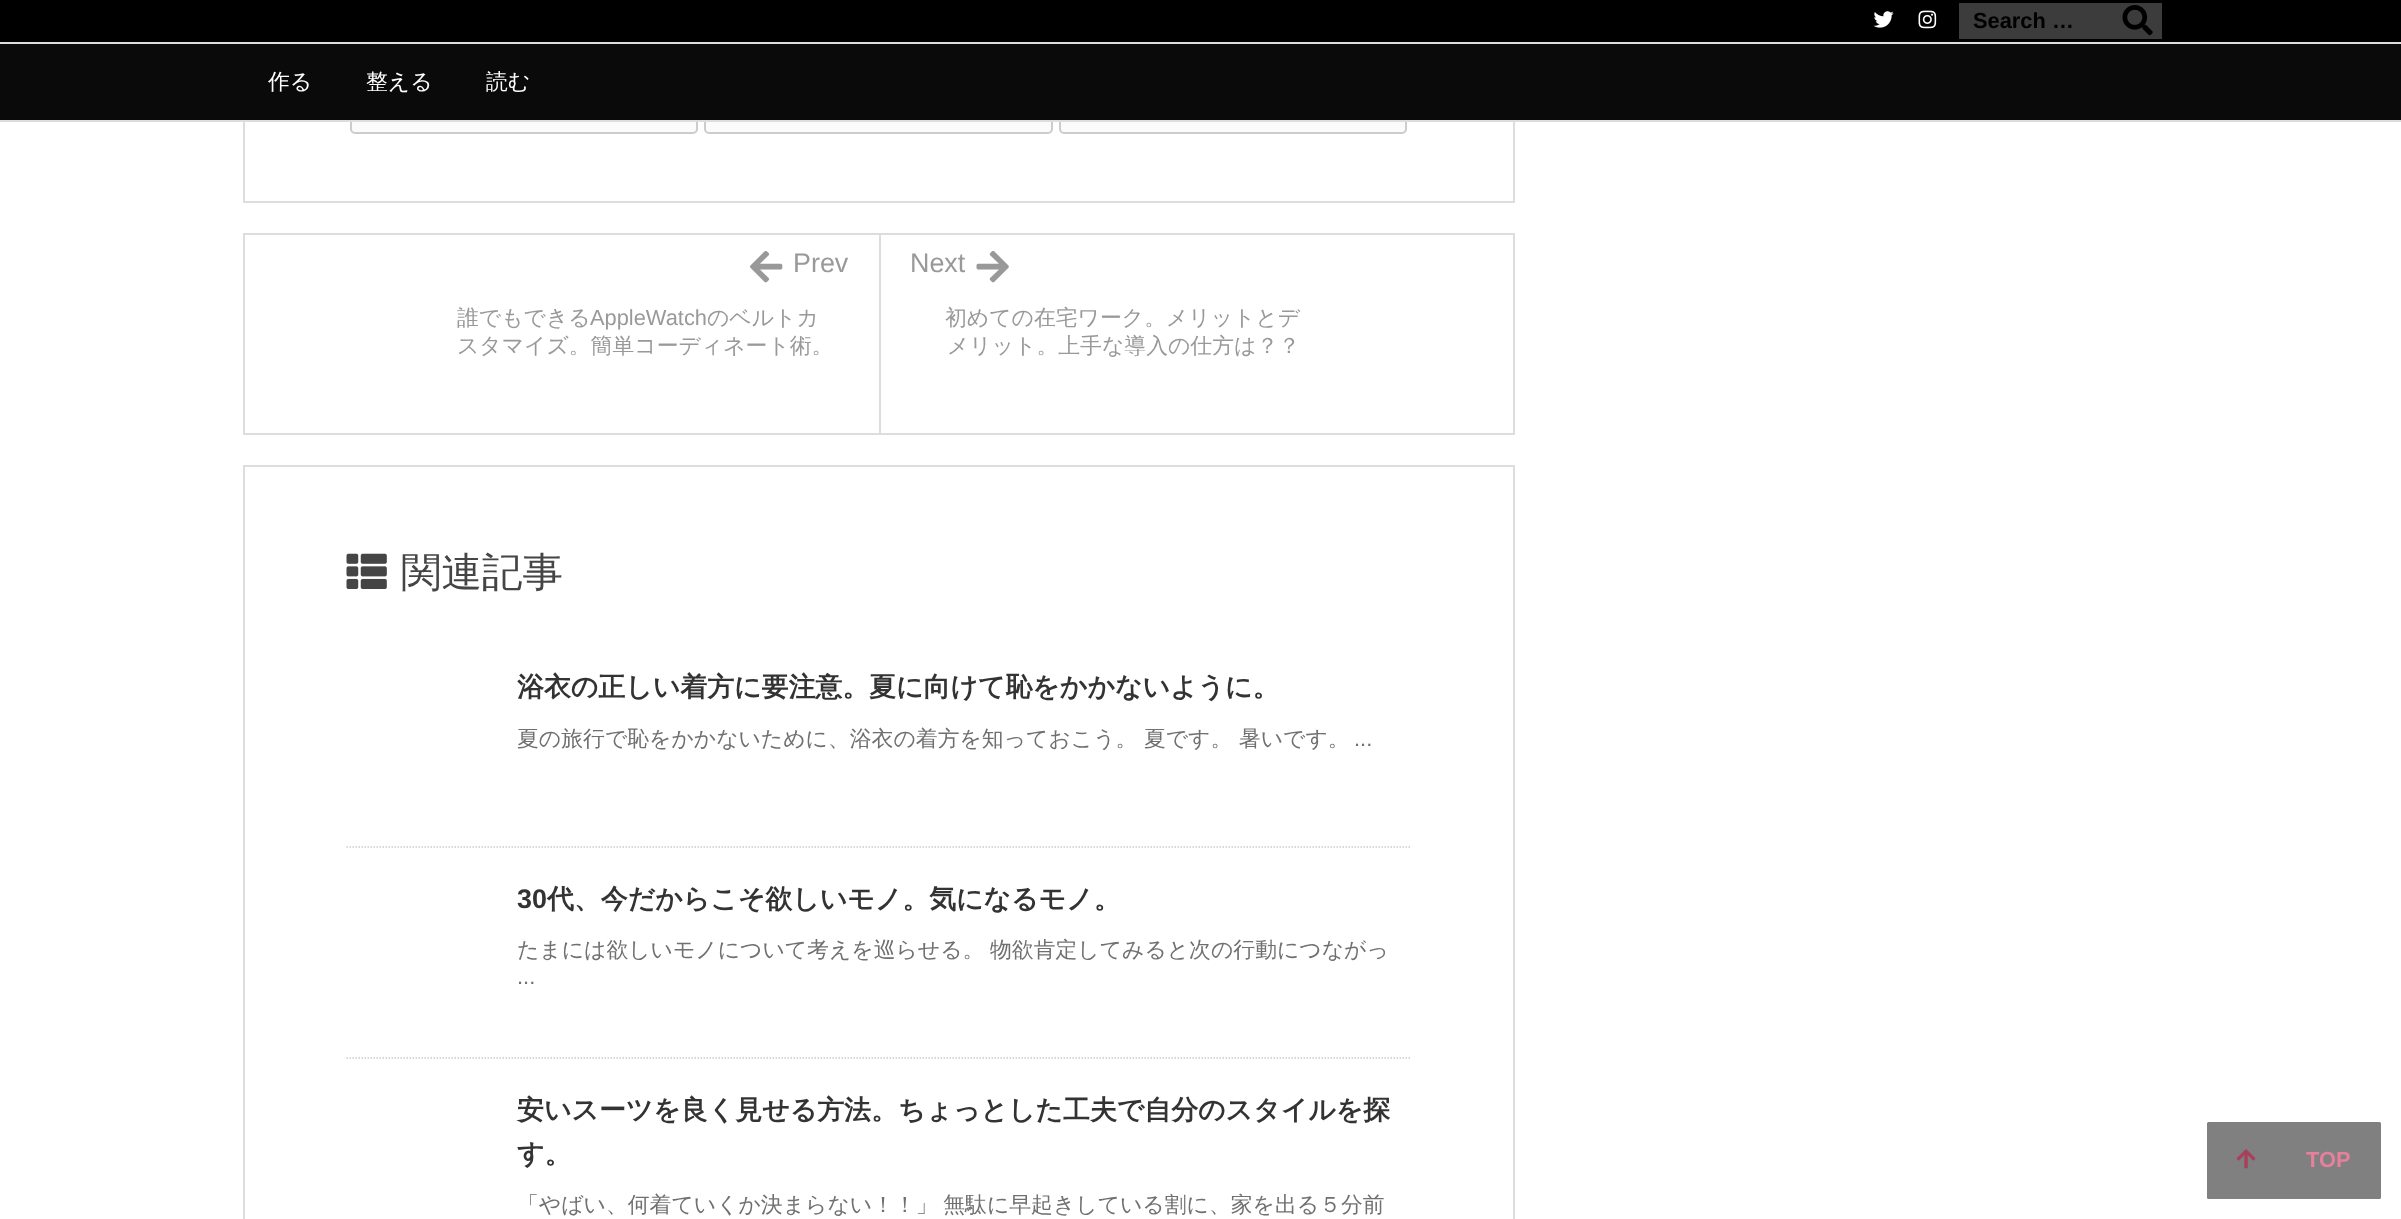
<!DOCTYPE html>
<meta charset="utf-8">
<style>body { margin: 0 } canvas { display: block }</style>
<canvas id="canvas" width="2401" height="1219"></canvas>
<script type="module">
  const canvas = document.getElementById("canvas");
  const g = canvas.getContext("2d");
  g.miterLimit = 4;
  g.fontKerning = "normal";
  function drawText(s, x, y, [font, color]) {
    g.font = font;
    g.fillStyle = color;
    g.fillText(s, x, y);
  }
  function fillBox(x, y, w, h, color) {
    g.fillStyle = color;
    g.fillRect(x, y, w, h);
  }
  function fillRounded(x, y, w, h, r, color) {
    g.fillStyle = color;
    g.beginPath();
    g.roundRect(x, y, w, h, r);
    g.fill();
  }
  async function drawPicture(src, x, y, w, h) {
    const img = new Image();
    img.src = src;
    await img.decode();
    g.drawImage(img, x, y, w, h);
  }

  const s1 = ["bold 21.85px Liberation Sans", "#000000"];
  const s2 = ["500 21.85px WenQuanYi Zen Hei", "#FFFFFF"];
  const s3 = ["26.9px Liberation Sans", "#999999"];
  const s4 = ["500 21.85px WenQuanYi Zen Hei", "#999999"];
  const s5 = ["21.85px Liberation Sans", "#999999"];
  const s6 = ["500 40.5px WenQuanYi Zen Hei", "#464545"];
  const s7 = ["bold 26.9px WenQuanYi Zen Hei", "#333333"];
  const s8 = ["500 21.85px WenQuanYi Zen Hei", "#707070"];
  const s9 = ["21.85px Liberation Sans", "#707070"];
  const s10 = ["bold 26.9px Liberation Sans", "#333333"];
  const s11 = ["bold 21.85px Liberation Sans", "#E7809B"];

  fillBox(0, 0, 2401, 1219, "#FFFFFF");
  g.strokeStyle = "#DDDDDD";
  g.lineWidth = 2;
  g.strokeRect(244, -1, 1270, 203);
  fillBox(0, 0, 2401, 42, "#000000");
  await drawPicture("pic1.png", 1873, 11, 21, 17);
  await drawPicture("pic2.png", 1918, 10, 19, 19);
  fillBox(1959, 3, 203, 36, "#3C3C3C");
  drawText("Search …", 1973, 28, s1);
  await drawPicture("pic3.png", 2122, 5, 31, 31);
  g.fillStyle = "#FBFBFB";
  g.beginPath();
  g.roundRect(351, 81, 346, 52, 4);
  g.fill();
  g.strokeStyle = "#CCCCCC";
  g.stroke();
  g.beginPath();
  g.roundRect(705, 81, 347, 52, 4);
  g.fill();
  g.stroke();
  g.beginPath();
  g.roundRect(1060, 81, 346, 52, 4);
  g.fill();
  g.stroke();
  fillBox(0, 44, 2401, 76, "#0A0A0A");
  fillBox(0, 42, 2401, 2, "#DDDDDD");
  fillBox(0, 120, 2401, 2, "#DDDDDD");
  drawText("作る", 268, 89, s2);
  drawText("整える", 366, 89, s2);
  drawText("読む", 486, 89, s2);
  g.strokeStyle = "#DDDDDD";
  g.strokeRect(244, 234, 1270, 200);
  await drawPicture("pic4.png", 750, 251, 33, 32);
  drawText("Prev", 793, 272, s3);
  drawText("誰でもできる", 457, 325, s4);
  drawText("AppleWatch", 590, 325, s5);
  drawText("のベルトカ", 707, 325, s4);
  drawText("スタマイズ。簡単コーディネート術。", 457, 353, s4);
  fillBox(879, 234, 2, 200, "#DDDDDD");
  drawText("Next", 910, 272, s3);
  await drawPicture("pic5.png", 976, 251, 33, 32);
  drawText("初めての在宅ワーク。メリットとデ", 945, 325, s4);
  drawText("メリット。上手な導入の仕方は？？", 947, 353, s4);
  g.strokeRect(244, 466, 1270, 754);
  await drawPicture("pic6.png", 346, 553, 41, 36);
  drawText("関連記事", 401, 586, s6);
  drawText("浴衣の正しい着方に要注意。夏に向けて恥をかかないように。", 517, 696, s7);
  drawText("夏の旅行で恥をかかないために、浴衣の着方を知っておこう。 夏です。 暑いです。", 517, 746, s8);
  drawText("...", 1354, 746, s9);
  g.beginPath();
  g.moveTo(346.5, 847);
  g.lineTo(1411.5, 847);
  g.strokeStyle = "#CCCCCC";
  g.lineWidth = 1.5;
  g.setLineDash([1.5, 1.5]);
  g.stroke();
  drawText("30", 517, 908, s10);
  drawText("代、今だからこそ欲しいモノ。気になるモノ。", 547, 908, s7);
  g.wordSpacing = "-1px";
  drawText("たまには欲しいモノについて考えを巡らせる。 物欲肯定してみると次の行動につながっ", 517, 957, s8);
  g.wordSpacing = "0px";
  drawText("...", 517, 984, s9);
  g.beginPath();
  g.moveTo(346.5, 1058);
  g.lineTo(1411.5, 1058);
  g.stroke();
  drawText("安いスーツを良く見せる方法。ちょっとした工夫で自分のスタイルを探", 517, 1119, s7);
  drawText("す。", 517, 1163, s7);
  g.wordSpacing = "-1px";
  drawText("「やばい、何着ていくか決まらない！！」 無駄に早起きしている割に、家を出る５分前", 517, 1212, s8);
  fillRounded(2207, 1122, 174, 77, 1.5, "#808080");
  await drawPicture("pic7.png", 2236, 1149, 20, 20);
  g.wordSpacing = "0px";
  drawText("TOP", 2306, 1167, s11);
</script>
